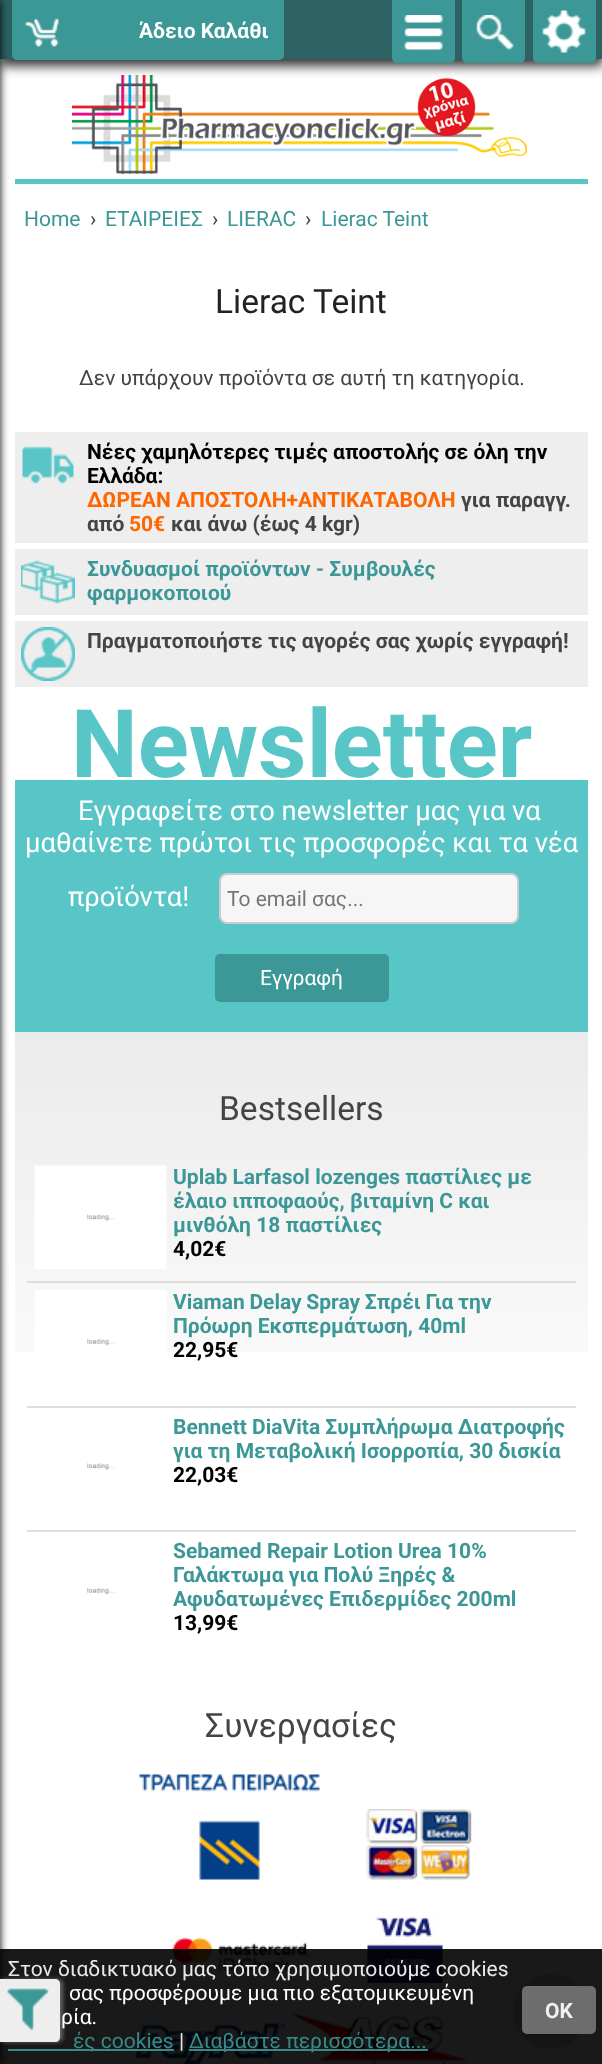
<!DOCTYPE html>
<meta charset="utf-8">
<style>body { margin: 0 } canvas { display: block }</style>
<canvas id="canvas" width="602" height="2064"></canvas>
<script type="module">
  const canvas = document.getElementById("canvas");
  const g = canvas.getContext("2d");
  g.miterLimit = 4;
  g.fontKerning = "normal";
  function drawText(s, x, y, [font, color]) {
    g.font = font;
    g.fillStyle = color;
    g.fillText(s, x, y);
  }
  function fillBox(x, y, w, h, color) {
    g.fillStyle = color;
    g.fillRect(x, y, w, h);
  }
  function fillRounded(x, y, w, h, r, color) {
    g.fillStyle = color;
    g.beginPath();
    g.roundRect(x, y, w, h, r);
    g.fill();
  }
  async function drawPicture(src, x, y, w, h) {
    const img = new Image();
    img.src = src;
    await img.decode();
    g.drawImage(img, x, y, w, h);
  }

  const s1 = ["bold 21px Roboto", "#FFFFFF"];
  const s2 = ["21px Roboto", "#3C9797"];
  const s3 = ["21px Roboto", "#444444"];
  const s4 = ["21px Roboto", "#E8E8E8"];
  const s5 = ["33.5px Roboto", "#222222"];
  const s6 = ["bold 21px Roboto", "#000000"];
  const s7 = ["bold 21px Roboto", "#FF6600"];
  const s8 = ["bold 21px Roboto", "#444444"];
  const s9 = ["bold 21px Roboto", "#3C9797"];
  const s10 = ["bold 94.5px Roboto", "#58C5C7"];
  const s11 = ["27.3px Roboto", "#FFFFFF"];
  const s12 = ["21px Roboto", "#757575"];
  const s13 = ["21px Roboto", "#FFFFFF"];
  const s14 = ["33.5px Roboto", "#444444"];
  const s15 = ["bold 21px Roboto", "#F0F0F0"];
  const s16 = ["21px Roboto", "#388A8A"];

  fillBox(0, 0, 602, 2064, "#FFFFFF");
  await drawPicture("pic5.png", 72, 75, 455, 99);
  g.fillStyle = "#333333";
  g.filter = "blur(6px)";
  g.beginPath();
  g.rect(0, 8, 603, 58);
  g.fill();
  g.filter = "none";
  fillBox(0, 0, 602, 59, "#2C6263");
  g.fillStyle = "#3C9797";
  g.beginPath();
  g.roundRect(392, 0, 63, 63, [0, 0, 5, 5]);
  g.fill();
  await drawPicture("pic1.png", 404, 15, 39, 35);
  g.beginPath();
  g.roundRect(462, 0, 63, 63, [0, 0, 5, 5]);
  g.fill();
  await drawPicture("pic2.png", 476, 15, 38, 35);
  g.beginPath();
  g.roundRect(533, 0, 63, 63, [0, 0, 5, 5]);
  g.fill();
  await drawPicture("pic3.png", 542, 10, 44, 43);
  g.beginPath();
  g.roundRect(12, 0, 272, 60, [0, 0, 5, 5]);
  g.fill();
  await drawPicture("pic4.png", 25, 18, 34, 29);
  drawText("Άδειο Καλάθι", 139, 38, s1);
  fillBox(15, 179, 573, 5, "#58C5C7");
  drawText("Home", 24, 226, s2);
  drawText("›", 90, 226, s3);
  drawText("ΕΤΑΙΡΕΙΕΣ", 105, 226, s2);
  drawText("›", 212, 226, s3);
  drawText("LIERAC", 227, 226, s2);
  drawText("›", 305, 226, s3);
  drawText("Lierac Teint", 321, 226, s2);
  await drawPicture("pic17.png", 172, 1937, 138, 35);
  await drawPicture("pic18.png", 367, 1916, 76, 67);
  await drawPicture("pic19.png", 135, 2023, 150, 41);
  await drawPicture("pic20.png", 292, 2012, 175, 52);
  g.fillStyle = "#C5E0E0";
  g.beginPath();
  g.arc(550.5, 2011.5, 37.5, 0, Math.PI * 2);
  g.fill();
  await drawPicture("pic21.png", 538, 2004, 25, 15);
  fillBox(0, 1949, 602, 115, "rgba(0, 0, 0, 0.9)");
  fillBox(8, 2049, 166, 2, "rgba(60, 151, 151, 0.9)");
  g.fillStyle = "#000000";
  g.filter = "blur(4px)";
  g.beginPath();
  g.rect(-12, 0, 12, 2064);
  g.fill();
  g.filter = "none";
  g.fillStyle = "#666666";
  g.filter = "blur(2px)";
  g.beginPath();
  g.roundRect(0, 1979, 63, 63, 5);
  g.fill();
  g.filter = "none";
  drawText("Στον διαδικτυακό μας τόπο χρησιμοποιούμε cookies", 8, 1976, s4);
  g.fillStyle = "#EEEEEE";
  g.beginPath();
  g.moveTo(-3, 1979);
  g.lineTo(55, 1979);
  g.bezierCurveTo(58, 1979, 60, 1981, 60, 1984);
  g.lineTo(60, 2037);
  g.bezierCurveTo(60, 2040, 58, 2042, 55, 2042);
  g.lineTo(-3, 2042);
  g.closePath();
  g.fill();
  await drawPicture("pic6.png", 7, 1988, 42, 43);
  drawText("Lierac Teint", 215, 313, s5);
  drawText("Δεν υπάρχουν προϊόντα σε αυτή τη κατηγορία.", 79, 385, s3);
  fillBox(15, 432, 573, 111, "#EEEEEE");
  await drawPicture("pic7.png", 22, 446, 52, 38);
  drawText("Νέες χαμηλότερες τιμές αποστολής σε όλη την", 87, 459, s6);
  drawText("Ελλάδα:", 87, 483, s6);
  drawText("ΔΩΡΕΑΝ ΑΠΟΣΤΟΛΗ+ΑΝΤΙΚΑΤΑΒΟΛΗ", 87, 507, s7);
  drawText("για παραγγ.", 461, 507, s8);
  drawText("από", 87, 531, s8);
  drawText("50€", 129, 531, s7);
  drawText("και άνω (έως 4 kgr)", 171, 531, s8);
  fillBox(15, 549, 573, 66, "#EEEEEE");
  await drawPicture("pic8.png", 21, 560, 54, 44);
  drawText("Συνδυασμοί προϊόντων - Συμβουλές", 87, 576, s9);
  drawText("φαρμοκοποιού", 87, 600, s9);
  fillBox(15, 621, 573, 66, "#EEEEEE");
  await drawPicture("pic9.png", 21, 627, 54, 54);
  drawText("Πραγματοποιήστε τις αγορές σας χωρίς εγγραφή!", 87, 648, s8);
  drawText("Newsletter", 71, 777, s10);
  fillBox(15, 780, 573, 252, "#58C5C7");
  drawText("Εγγραφείτε στο newsletter μας για να", 78, 820, s11);
  drawText("μαθαίνετε πρώτοι τις προσφορές και τα νέα", 25, 852, s11);
  drawText("προϊόντα!", 68, 906, s11);
  g.fillStyle = "#F6F6F6";
  g.beginPath();
  g.roundRect(220, 874, 298, 49, 7);
  g.fill();
  g.strokeStyle = "#CCCCCC";
  g.lineWidth = 2;
  g.stroke();
  drawText("Το email σας...", 227, 906, s12);
  fillRounded(215, 954, 174, 48, 5, "#3C9797");
  drawText("Εγγραφή", 260, 985, s13);
  await drawPicture("pic10.png", 15, 1032, 573, 320);
  drawText("Bestsellers", 219, 1120, s14);
  fillBox(27, 1281, 549, 2, "#DDDDDD");
  await drawPicture("pic11.png", 34, 1165, 133, 104);
  drawText("Uplab Larfasol lozenges παστίλιες με", 173, 1184, s9);
  drawText("έλαιο ιπποφαούς, βιταμίνη C και", 173, 1208, s9);
  drawText("μινθόλη 18 παστίλιες", 173, 1232, s9);
  drawText("4,02€", 173, 1256, s6);
  fillBox(27, 1406, 549, 2, "#DDDDDD");
  await drawPicture("pic12.png", 34, 1290, 133, 84);
  g.wordSpacing = "-0.5px";
  drawText("Viaman Delay Spray Σπρέι Για την", 173, 1309, s9);
  g.wordSpacing = "0px";
  drawText("Πρόωρη Εκσπερμάτωση, 40ml", 173, 1333, s9);
  drawText("22,95€", 173, 1357, s6);
  fillBox(27, 1530, 549, 2, "#DDDDDD");
  await drawPicture("pic13.png", 87, 1463, 28, 7);
  drawText("Bennett DiaVita Συμπλήρωμα Διατροφής", 173, 1434, s9);
  drawText("για τη Μεταβολική Ισορροπία, 30 δισκία", 173, 1458, s9);
  drawText("22,03€", 173, 1482, s6);
  await drawPicture("pic14.png", 87, 1588, 28, 7);
  drawText("Sebamed Repair Lotion Urea 10%", 173, 1558, s9);
  drawText("Γαλάκτωμα για Πολύ Ξηρές &", 173, 1582, s9);
  drawText("Αφυδατωμένες Επιδερμίδες 200ml", 173, 1606, s9);
  drawText("13,99€", 173, 1630, s6);
  drawText("Συνεργασίες", 205, 1737, s14);
  await drawPicture("pic15.png", 139, 1774, 181, 106);
  await drawPicture("pic16.png", 365, 1809, 107, 71);
  drawText("σας προσφέρουμε μια πιο εξατομικευμένη", 69, 2000, s13);
  drawText("ρία.", 61, 2024, s13);
  fillRounded(522, 1986, 74, 48, 5, "rgba(119, 119, 119, 0.9)");
  drawText("OK", 545, 2018, s15);
  drawText("ές cookies", 73, 2048, s16);
  drawText("|", 179, 2048, s4);
  fillBox(189, 2049, 239, 2, "rgba(60, 151, 151, 0.9)");
  drawText("Διαβάστε περισσότερα...", 189, 2048, s16);
</script>
